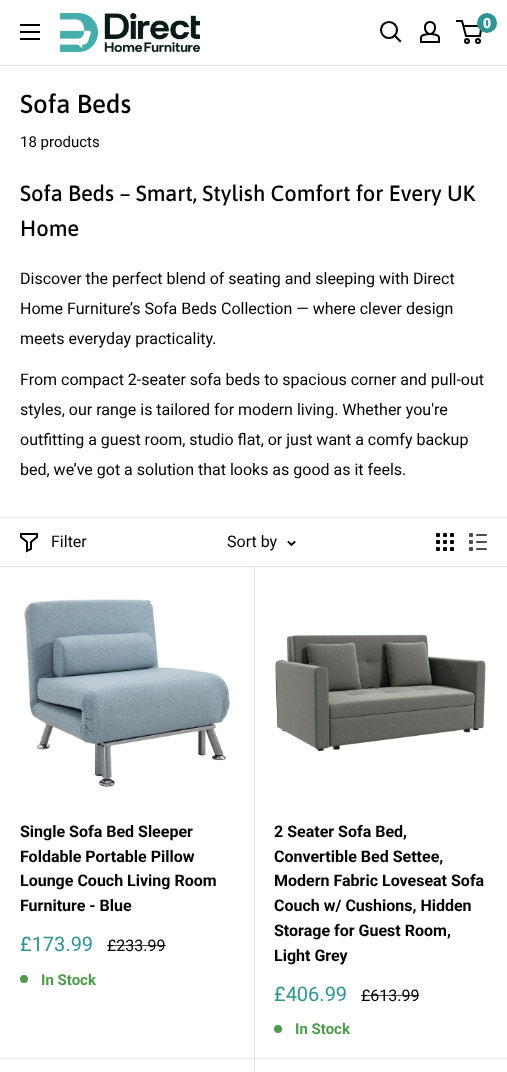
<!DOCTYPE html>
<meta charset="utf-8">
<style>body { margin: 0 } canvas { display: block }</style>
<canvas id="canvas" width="507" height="1072"></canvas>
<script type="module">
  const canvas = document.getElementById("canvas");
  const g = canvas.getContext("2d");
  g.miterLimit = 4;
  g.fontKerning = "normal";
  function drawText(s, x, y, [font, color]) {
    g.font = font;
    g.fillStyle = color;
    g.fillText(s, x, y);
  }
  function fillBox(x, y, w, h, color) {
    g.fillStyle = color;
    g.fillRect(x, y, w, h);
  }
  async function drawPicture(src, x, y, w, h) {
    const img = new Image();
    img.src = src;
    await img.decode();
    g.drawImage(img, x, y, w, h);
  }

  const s1 = ["900 14px Roboto", "#FFFFFF"];
  const s2 = ["500 26px Asap", "#000000"];
  const s3 = ["15px Roboto", "#000000"];
  const s4 = ["500 22px Asap", "#000000"];
  const s5 = ["16px Roboto", "#000000"];
  const s6 = ["bold 16px Roboto", "#000000"];
  const s7 = ["20px Roboto", "#2F9493"];
  const s8 = ["bold 15px Roboto", "#4D9C4D"];

  fillBox(0, 0, 507, 1072, "#FFFFFF");
  await drawPicture("pic1.png", 20, 24, 20, 16);
  await drawPicture("pic2.png", 60, 13, 140, 39);
  g.beginPath();
  g.moveTo(400, 41);
  g.lineTo(394.5, 35.5);
  g.strokeStyle = "#000000";
  g.lineWidth = 2.1;
  g.lineCap = "square";
  g.stroke();
  g.beginPath();
  g.arc(389, 30, 8, 0, Math.PI * 2);
  g.stroke();
  await drawPicture("pic3.png", 420, 21, 20, 22);
  g.beginPath();
  g.arc(467, 41, 2, 0, Math.PI * 2);
  g.lineWidth = 2;
  g.stroke();
  g.beginPath();
  g.arc(478, 41, 2, 0, Math.PI * 2);
  g.stroke();
  g.beginPath();
  g.moveTo(463.5, 26);
  g.lineTo(481.5, 26);
  g.lineTo(480, 36);
  g.lineTo(466, 36);
  g.lineTo(462, 21);
  g.lineTo(456, 21);
  g.lineCap = "butt";
  g.stroke();
  g.fillStyle = "#2F9493";
  g.beginPath();
  g.arc(487, 23, 10, 0, Math.PI * 2);
  g.fill();
  drawText("0", 483, 28, s1);
  fillBox(0, 65, 507, 1, "#E1E3E4");
  drawText("Sofa Beds", 20, 113, s2);
  drawText("18 products", 20, 147, s3);
  drawText("Sofa Beds – Smart, Stylish Comfort for Every UK", 20, 201, s4);
  drawText("Home", 20, 236, s4);
  drawText("Discover the perfect blend of seating and sleeping with Direct", 20, 284, s5);
  drawText("Home Furniture’s Sofa Beds Collection — where clever design", 20, 314, s5);
  drawText("meets everyday practicality.", 20, 344, s5);
  drawText("From compact 2-seater sofa beds to spacious corner and pull-out", 20, 385, s5);
  drawText("styles, our range is tailored for modern living. Whether you're", 20, 415, s5);
  drawText("outfitting a guest room, studio flat, or just want a comfy backup", 20, 445, s5);
  drawText("bed, we’ve got a solution that looks as good as it feels.", 20, 475, s5);
  fillBox(0, 517, 507, 1, "#E1E3E4");
  fillBox(0, 1058, 507, 1, "#E1E3E4");
  fillBox(254, 566, 1, 506, "#E1E3E4");
  fillBox(0, 566, 507, 1, "#E1E3E4");
  g.beginPath();
  g.moveTo(37, 537);
  g.lineTo(31, 542);
  g.lineTo(31, 549);
  g.lineTo(27, 551);
  g.lineTo(27, 542);
  g.lineTo(21, 537);
  g.lineTo(21, 534);
  g.lineTo(37, 534);
  g.closePath();
  g.lineCap = "square";
  g.stroke();
  drawText("Filter", 51, 547, s5);
  drawText("Sort by", 227, 547, s5);
  g.beginPath();
  g.moveTo(294.5, 542);
  g.lineTo(291.5, 545);
  g.lineTo(288.5, 542);
  g.lineWidth = 1.9;
  g.stroke();
  await drawPicture("pic4.png", 436, 533, 18, 18);
  await drawPicture("pic5.png", 469, 533, 18, 18);
  await drawPicture("pic6.png", 24, 599, 206, 188);
  drawText("Single Sofa Bed Sleeper", 20, 837, s6);
  drawText("Foldable Portable Pillow", 20, 862, s6);
  drawText("Lounge Couch Living Room", 20, 886, s6);
  drawText("Furniture - Blue", 20, 911, s6);
  drawText("£173.99", 20, 951, s7);
  drawText("£233.99", 107, 951, s5);
  fillBox(107, 945, 59, 1, "rgba(0, 0, 0, 0.7)");
  g.fillStyle = "#4D9C4D";
  g.beginPath();
  g.arc(24, 979, 4, 0, Math.PI * 2);
  g.fill();
  drawText("In Stock", 41, 985, s8);
  await drawPicture("pic7.png", 275, 634, 211, 118);
  drawText("2 Seater Sofa Bed,", 274, 837, s6);
  drawText("Convertible Bed Settee,", 274, 862, s6);
  drawText("Modern Fabric Loveseat Sofa", 274, 886, s6);
  drawText("Couch w/ Cushions, Hidden", 274, 911, s6);
  drawText("Storage for Guest Room,", 274, 936, s6);
  drawText("Light Grey", 274, 961, s6);
  drawText("£406.99", 274, 1001, s7);
  drawText("£613.99", 361, 1001, s5);
  fillBox(361, 995, 58, 1, "rgba(0, 0, 0, 0.7)");
  g.fillStyle = "#4D9C4D";
  g.beginPath();
  g.arc(278, 1029, 4, 0, Math.PI * 2);
  g.fill();
  drawText("In Stock", 295, 1034, s8);
</script>
